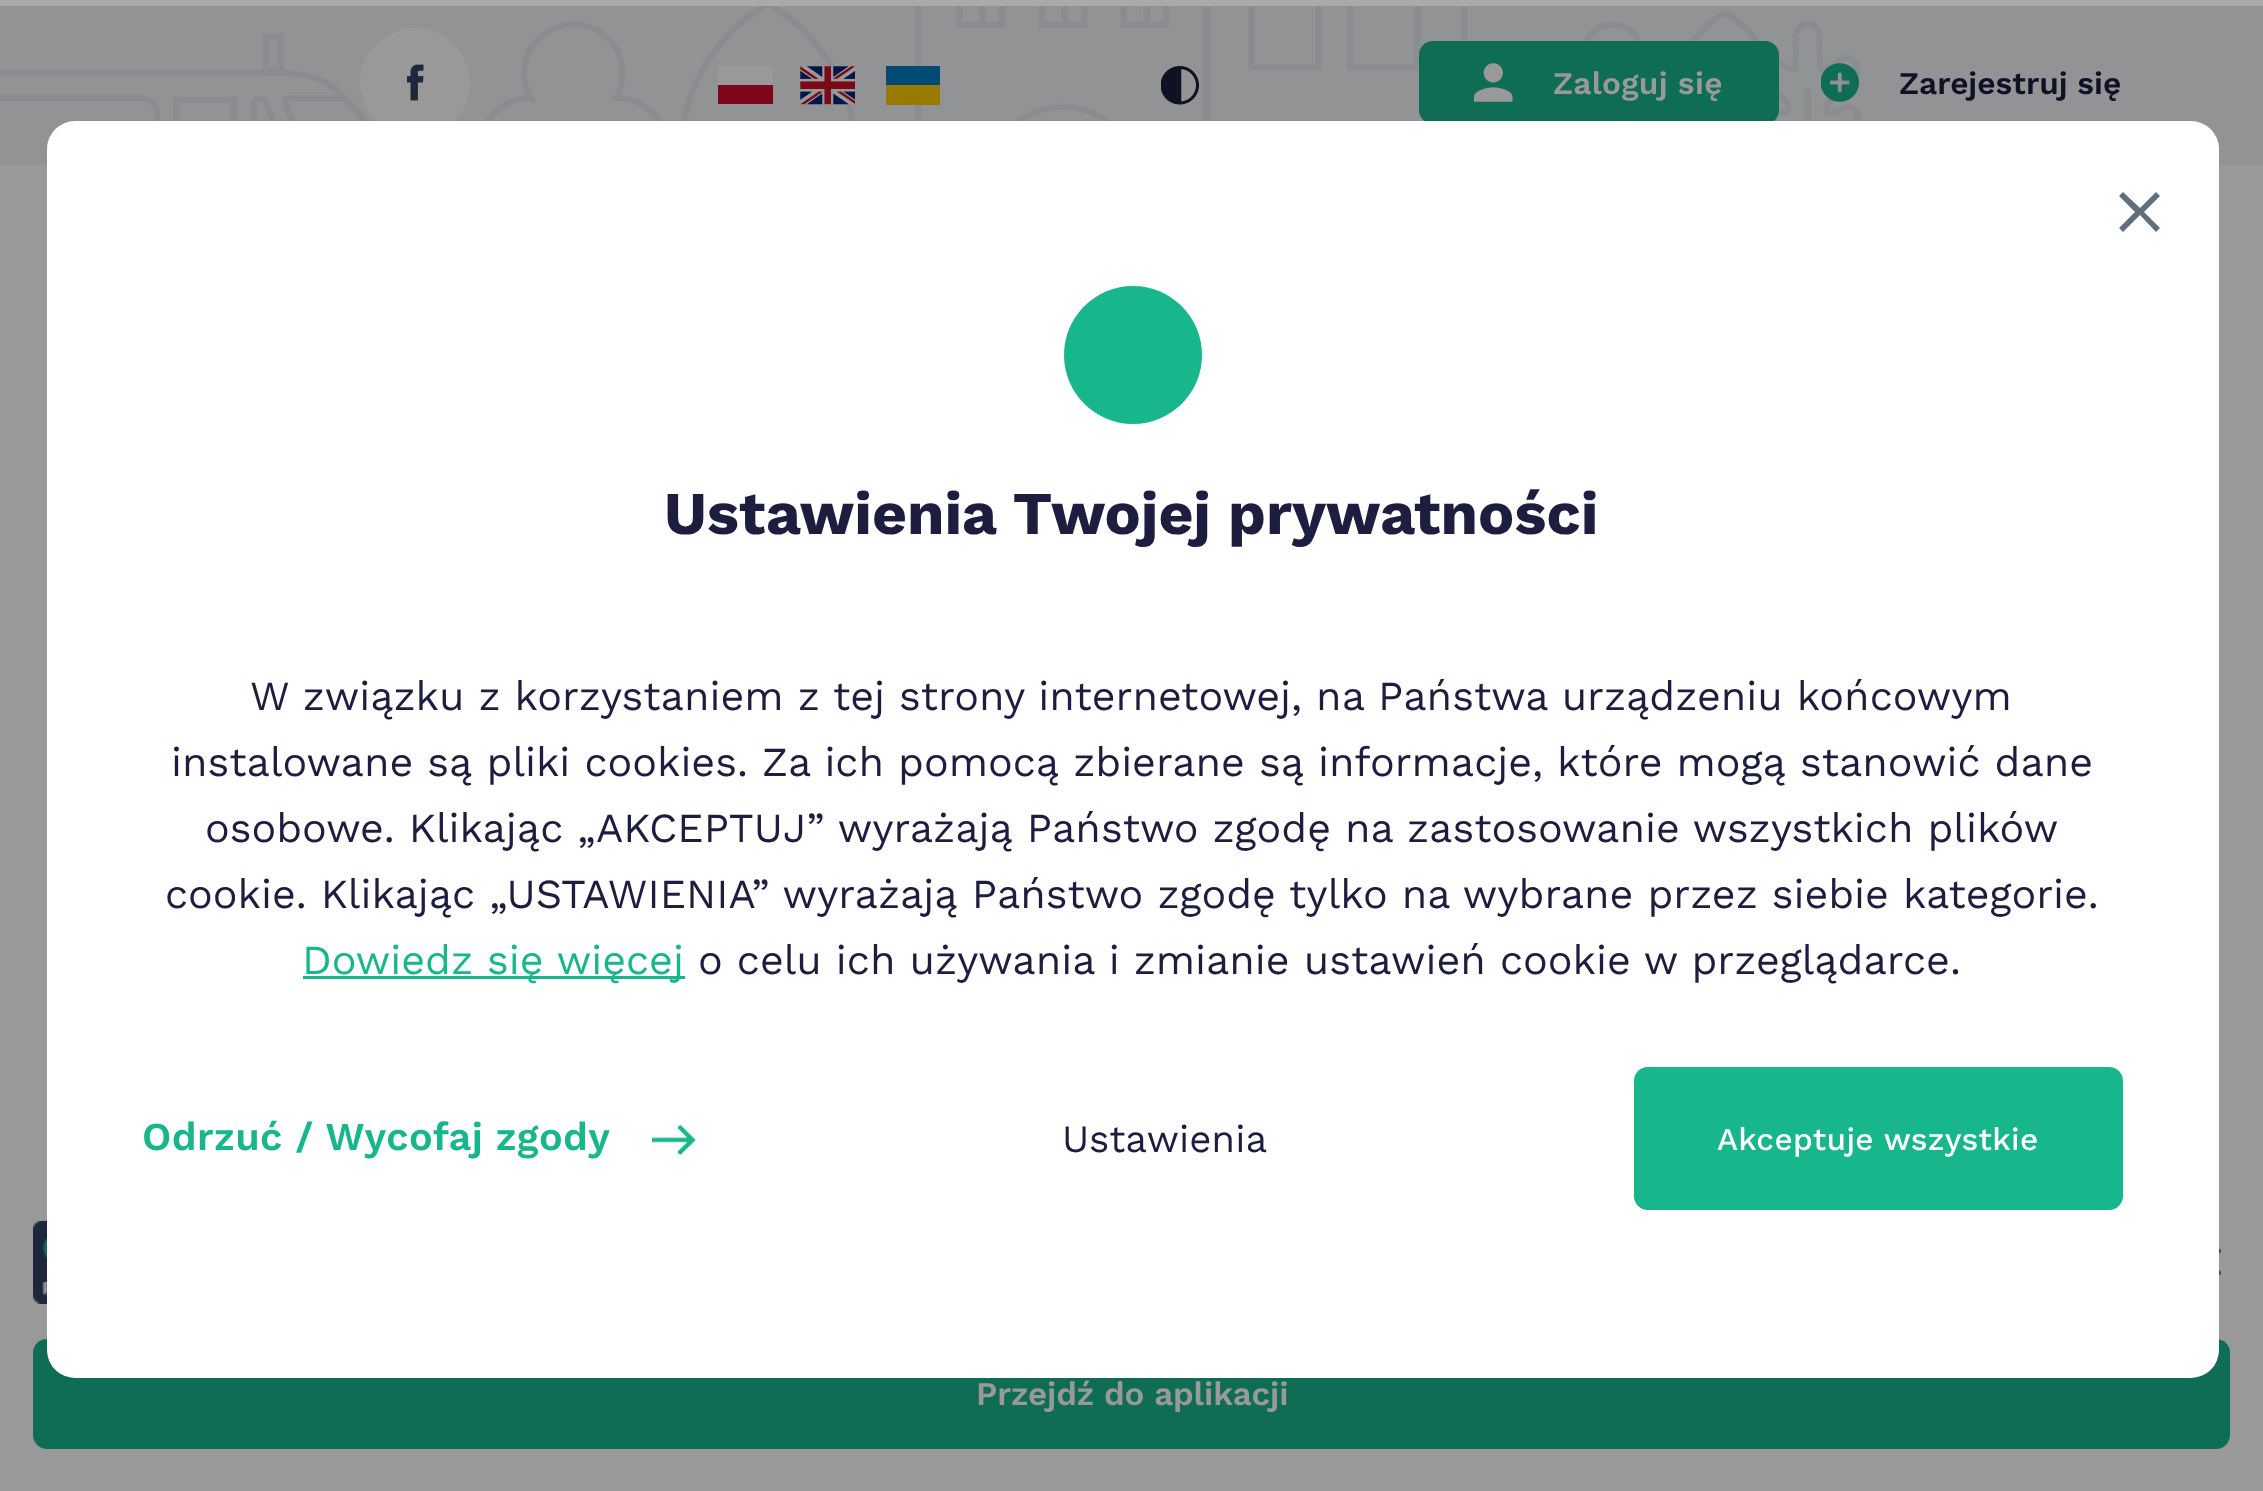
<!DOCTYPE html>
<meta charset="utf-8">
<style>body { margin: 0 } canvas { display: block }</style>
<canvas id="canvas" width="2263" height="1491"></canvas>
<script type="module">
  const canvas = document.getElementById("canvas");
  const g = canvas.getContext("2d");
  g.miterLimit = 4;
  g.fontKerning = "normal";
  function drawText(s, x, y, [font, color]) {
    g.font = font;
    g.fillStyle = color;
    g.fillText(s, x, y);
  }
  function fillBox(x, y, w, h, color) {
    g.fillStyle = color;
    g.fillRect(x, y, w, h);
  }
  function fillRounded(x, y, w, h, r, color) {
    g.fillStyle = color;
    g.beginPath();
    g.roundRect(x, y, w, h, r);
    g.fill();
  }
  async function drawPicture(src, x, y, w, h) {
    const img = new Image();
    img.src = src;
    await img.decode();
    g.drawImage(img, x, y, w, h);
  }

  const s1 = ["600 31.6px Work Sans", "#999999"];
  const s2 = ["600 31.6px Work Sans", "#111126"];
  const s3 = ["bold 60.5px Work Sans", "#1D1D40"];
  const s4 = ["41.25px Work Sans", "#1D1D40"];
  const s5 = ["41.25px Work Sans", "#18B68C"];
  const s6 = ["600 39.6px Work Sans", "#18B68C"];
  const s7 = ["38.5px Work Sans", "#1D1D40"];
  const s8 = ["500 31.6px Work Sans", "#FFFFFF"];
  const s9 = ["600 33px Work Sans", "#999999"];

  fillBox(0, 0, 2263, 1491, "#999999");
  fillBox(0, 6, 2263, 159, "#919395");
  await drawPicture("pic1.png", 0, 6, 1861, 115);
  g.fillStyle = "#999999";
  g.beginPath();
  g.arc(415, 83, 55, 0, Math.PI * 2);
  g.fill();
  await drawPicture("pic2.png", 407, 64, 17, 37);
  fillBox(718, 66, 55, 19, "#999999");
  fillBox(718, 85, 55, 19, "#80061C");
  await drawPicture("pic3.png", 800, 66, 55, 39);
  fillBox(886, 66, 54, 19, "#004A76");
  fillBox(886, 85, 54, 20, "#997A00");
  await drawPicture("pic4.png", 1161, 66, 38, 39);
  fillRounded(1419, 41, 360, 83, 14, "#0E6D54");
  await drawPicture("pic5.png", 1474, 63, 39, 39);
  g.letterSpacing = "0.3px";
  drawText("Zaloguj się", 1553, 94, s1);
  await drawPicture("pic6.png", 1821, 63, 38, 39);
  g.letterSpacing = "0px";
  drawText("Zarejestruj się", 1899, 94, s2);
  fillBox(0, 0, 2263, 6, "#AAAAAA");
  g.beginPath();
  g.moveTo(2219, 1251);
  g.lineTo(2197, 1273);
  g.moveTo(2197, 1251);
  g.lineTo(2219, 1273);
  g.strokeStyle = "#44474D";
  g.lineWidth = 4.1;
  g.lineCap = "round";
  g.lineJoin = "round";
  g.stroke();
  fillRounded(33, 1339, 2197, 110, 14, "#0E6D54");
  fillRounded(47, 121, 2172, 1257, 28, "#FFFFFF");
  g.fillStyle = "#616E7B";
  g.beginPath();
  g.moveTo(2140, 215);
  g.lineTo(2123, 232);
  g.lineTo(2119, 228);
  g.lineTo(2135, 212);
  g.lineTo(2119, 196);
  g.lineTo(2123, 192);
  g.lineTo(2140, 208);
  g.lineTo(2156, 192);
  g.lineTo(2160, 196);
  g.lineTo(2144, 212);
  g.lineTo(2160, 228);
  g.lineTo(2156, 232);
  g.closePath();
  g.fill();
  g.fillStyle = "#18B68C";
  g.beginPath();
  g.arc(1133, 355, 69, 0, Math.PI * 2);
  g.fill();
  drawText("Ustawienia Twojej prywatności", 664, 534, s3);
  drawText("W związku z korzystaniem z tej strony internetowej, na Państwa urządzeniu końcowym", 250, 710, s4);
  drawText("instalowane są pliki cookies. Za ich pomocą zbierane są informacje, które mogą stanowić dane", 171, 776, s4);
  drawText("osobowe. Klikając „AKCEPTUJ” wyrażają Państwo zgodę na zastosowanie wszystkich plików", 205, 842, s4);
  drawText("cookie. Klikając „USTAWIENIA” wyrażają Państwo zgodę tylko na wybrane przez siebie kategorie.", 165, 908, s4);
  fillBox(303, 976, 382, 3, "#18B68C");
  drawText("Dowiedz się więcej", 302, 974, s5);
  drawText("o celu ich używania i zmianie ustawień cookie w przeglądarce.", 698, 974, s4);
  g.letterSpacing = "0.4px";
  drawText("Odrzuć / Wycofaj zgody", 142, 1150, s6);
  await drawPicture("pic7.png", 652, 1125, 44, 31);
  g.letterSpacing = "0px";
  drawText("Ustawienia", 1062, 1152, s7);
  fillRounded(1634, 1067, 489, 143, 14, "#18B68C");
  g.letterSpacing = "0.3px";
  drawText("Akceptuje wszystkie", 1717, 1150, s8);
  await drawPicture("pic8.png", 33, 1221, 14, 83);
  g.letterSpacing = "-0.1px";
  drawText("Przejdź do aplikacji", 976, 1405, s9);
</script>
